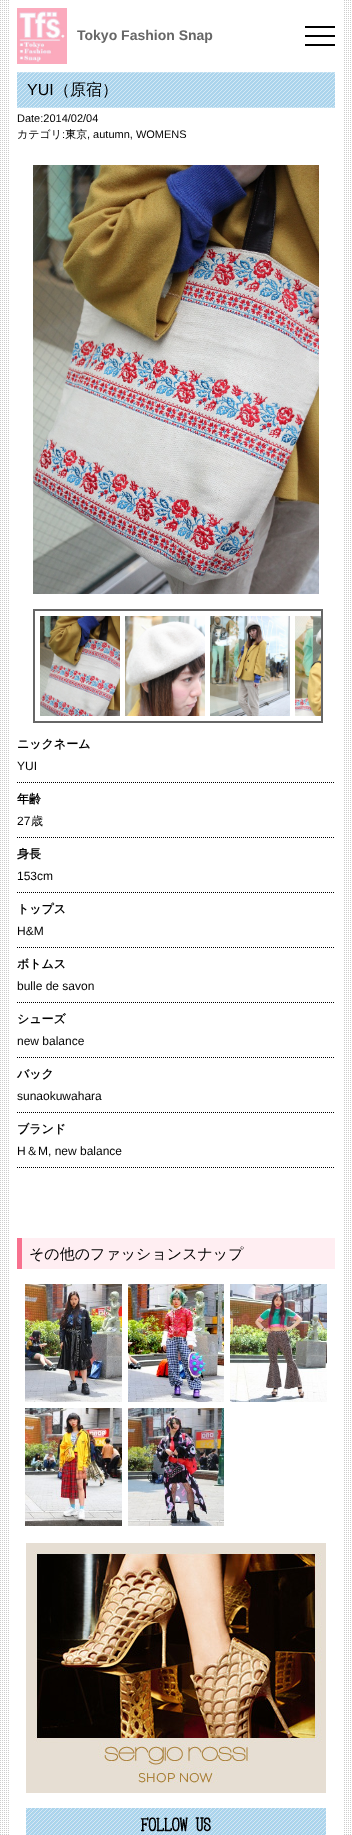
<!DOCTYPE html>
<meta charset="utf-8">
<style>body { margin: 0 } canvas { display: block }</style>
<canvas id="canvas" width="352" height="1835"></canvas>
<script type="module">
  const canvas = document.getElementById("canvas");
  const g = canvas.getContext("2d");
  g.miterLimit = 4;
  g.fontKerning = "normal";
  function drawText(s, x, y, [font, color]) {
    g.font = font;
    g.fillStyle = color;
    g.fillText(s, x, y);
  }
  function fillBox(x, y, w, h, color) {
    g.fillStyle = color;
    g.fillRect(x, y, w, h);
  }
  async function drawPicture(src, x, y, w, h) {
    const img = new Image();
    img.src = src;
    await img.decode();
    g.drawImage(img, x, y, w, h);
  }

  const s1 = ["bold 14px Liberation Sans", "#666666"];
  const s2 = ["16px Liberation Sans", "#000000"];
  const s3 = ["500 16px WenQuanYi Zen Hei", "#000000"];
  const s4 = ["11px Liberation Sans", "#000000"];
  const s5 = ["500 11px WenQuanYi Zen Hei", "#000000"];
  const s6 = ["bold 12px WenQuanYi Zen Hei", "#000000"];
  const s7 = ["12px Liberation Sans", "#000000"];
  const s8 = ["500 12px WenQuanYi Zen Hei", "#000000"];
  const s9 = ["500 15px WenQuanYi Zen Hei", "#000000"];

  fillBox(0, 0, 352, 1835, "#FFFFFF");
  await drawPicture("pic1.png", 0, 0, 351, 1835);
  fillBox(10, 0, 333, 1835, "#FFFFFF");
  await drawPicture("pic2.png", 17, 8, 50, 56);
  drawText("Tokyo Fashion Snap", 77, 40, s1);
  fillBox(305, 35, 30, 2, "#000000");
  fillBox(305, 26, 30, 2, "#000000");
  fillBox(305, 44, 30, 2, "#000000");
  await drawPicture("pic3.png", 17, 72, 318, 36);
  drawText("YUI", 27, 95, s2);
  drawText("（原宿）", 54, 95, s3);
  drawText("Date:2014/02/04", 17, 122, s4);
  drawText("カテゴリ 東京", 17, 138, s5);
  drawText(", autumn, WOMENS", 87, 138, s4);
  drawText(":", 62, 138, s4);
  await drawPicture("pic4.png", 33, 165, 286, 429);
  g.strokeStyle = "#666666";
  g.lineWidth = 2;
  g.strokeRect(34, 610, 288, 112);
  await drawPicture("pic5.png", 40, 616, 80, 100);
  await drawPicture("pic6.png", 125, 616, 80, 100);
  await drawPicture("pic7.png", 210, 616, 80, 100);
  await drawPicture("pic8.png", 295, 616, 26, 100);
  drawText("ニックネーム", 17, 748, s6);
  g.beginPath();
  g.moveTo(17, 782.5);
  g.lineTo(335, 782.5);
  g.strokeStyle = "#000000";
  g.lineWidth = 1;
  g.setLineDash([1, 1]);
  g.stroke();
  drawText("YUI", 17, 770, s7);
  drawText("年齢", 17, 803, s6);
  g.beginPath();
  g.moveTo(17, 837.5);
  g.lineTo(335, 837.5);
  g.stroke();
  drawText("27", 17, 825, s7);
  drawText("歳", 31, 825, s8);
  drawText("身長", 17, 858, s6);
  g.beginPath();
  g.moveTo(17, 892.5);
  g.lineTo(335, 892.5);
  g.stroke();
  drawText("153cm", 17, 880, s7);
  drawText("トップス", 17, 913, s6);
  g.beginPath();
  g.moveTo(17, 947.5);
  g.lineTo(335, 947.5);
  g.stroke();
  drawText("H&M", 17, 935, s7);
  drawText("ボトムス", 17, 968, s6);
  g.beginPath();
  g.moveTo(17, 1002.5);
  g.lineTo(335, 1002.5);
  g.stroke();
  drawText("bulle de savon", 17, 990, s7);
  drawText("シューズ", 17, 1023, s6);
  g.beginPath();
  g.moveTo(17, 1057.5);
  g.lineTo(335, 1057.5);
  g.stroke();
  drawText("new balance", 17, 1045, s7);
  drawText("バック", 17, 1078, s6);
  g.beginPath();
  g.moveTo(17, 1112.5);
  g.lineTo(335, 1112.5);
  g.stroke();
  drawText("sunaokuwahara", 17, 1100, s7);
  drawText("ブランド", 17, 1133, s6);
  g.beginPath();
  g.moveTo(17, 1167.5);
  g.lineTo(335, 1167.5);
  g.stroke();
  drawText("H", 17, 1155, s7);
  drawText("＆", 26, 1155, s8);
  drawText("M, new balance", 38, 1155, s7);
  fillBox(22, 1238, 313, 31, "#FFEEF2");
  fillBox(17, 1238, 5, 31, "#F8718F");
  drawText("その他のファッションスナップ", 29, 1259, s9);
  await drawPicture("pic9.png", 25, 1284, 97, 118);
  await drawPicture("pic10.png", 128, 1284, 96, 118);
  await drawPicture("pic11.png", 230, 1284, 97, 118);
  await drawPicture("pic12.png", 25, 1408, 97, 118);
  await drawPicture("pic13.png", 128, 1408, 96, 118);
  await drawPicture("pic14.png", 26, 1543, 300, 250);
  await drawPicture("pic15.png", 26, 1808, 300, 27);
</script>
